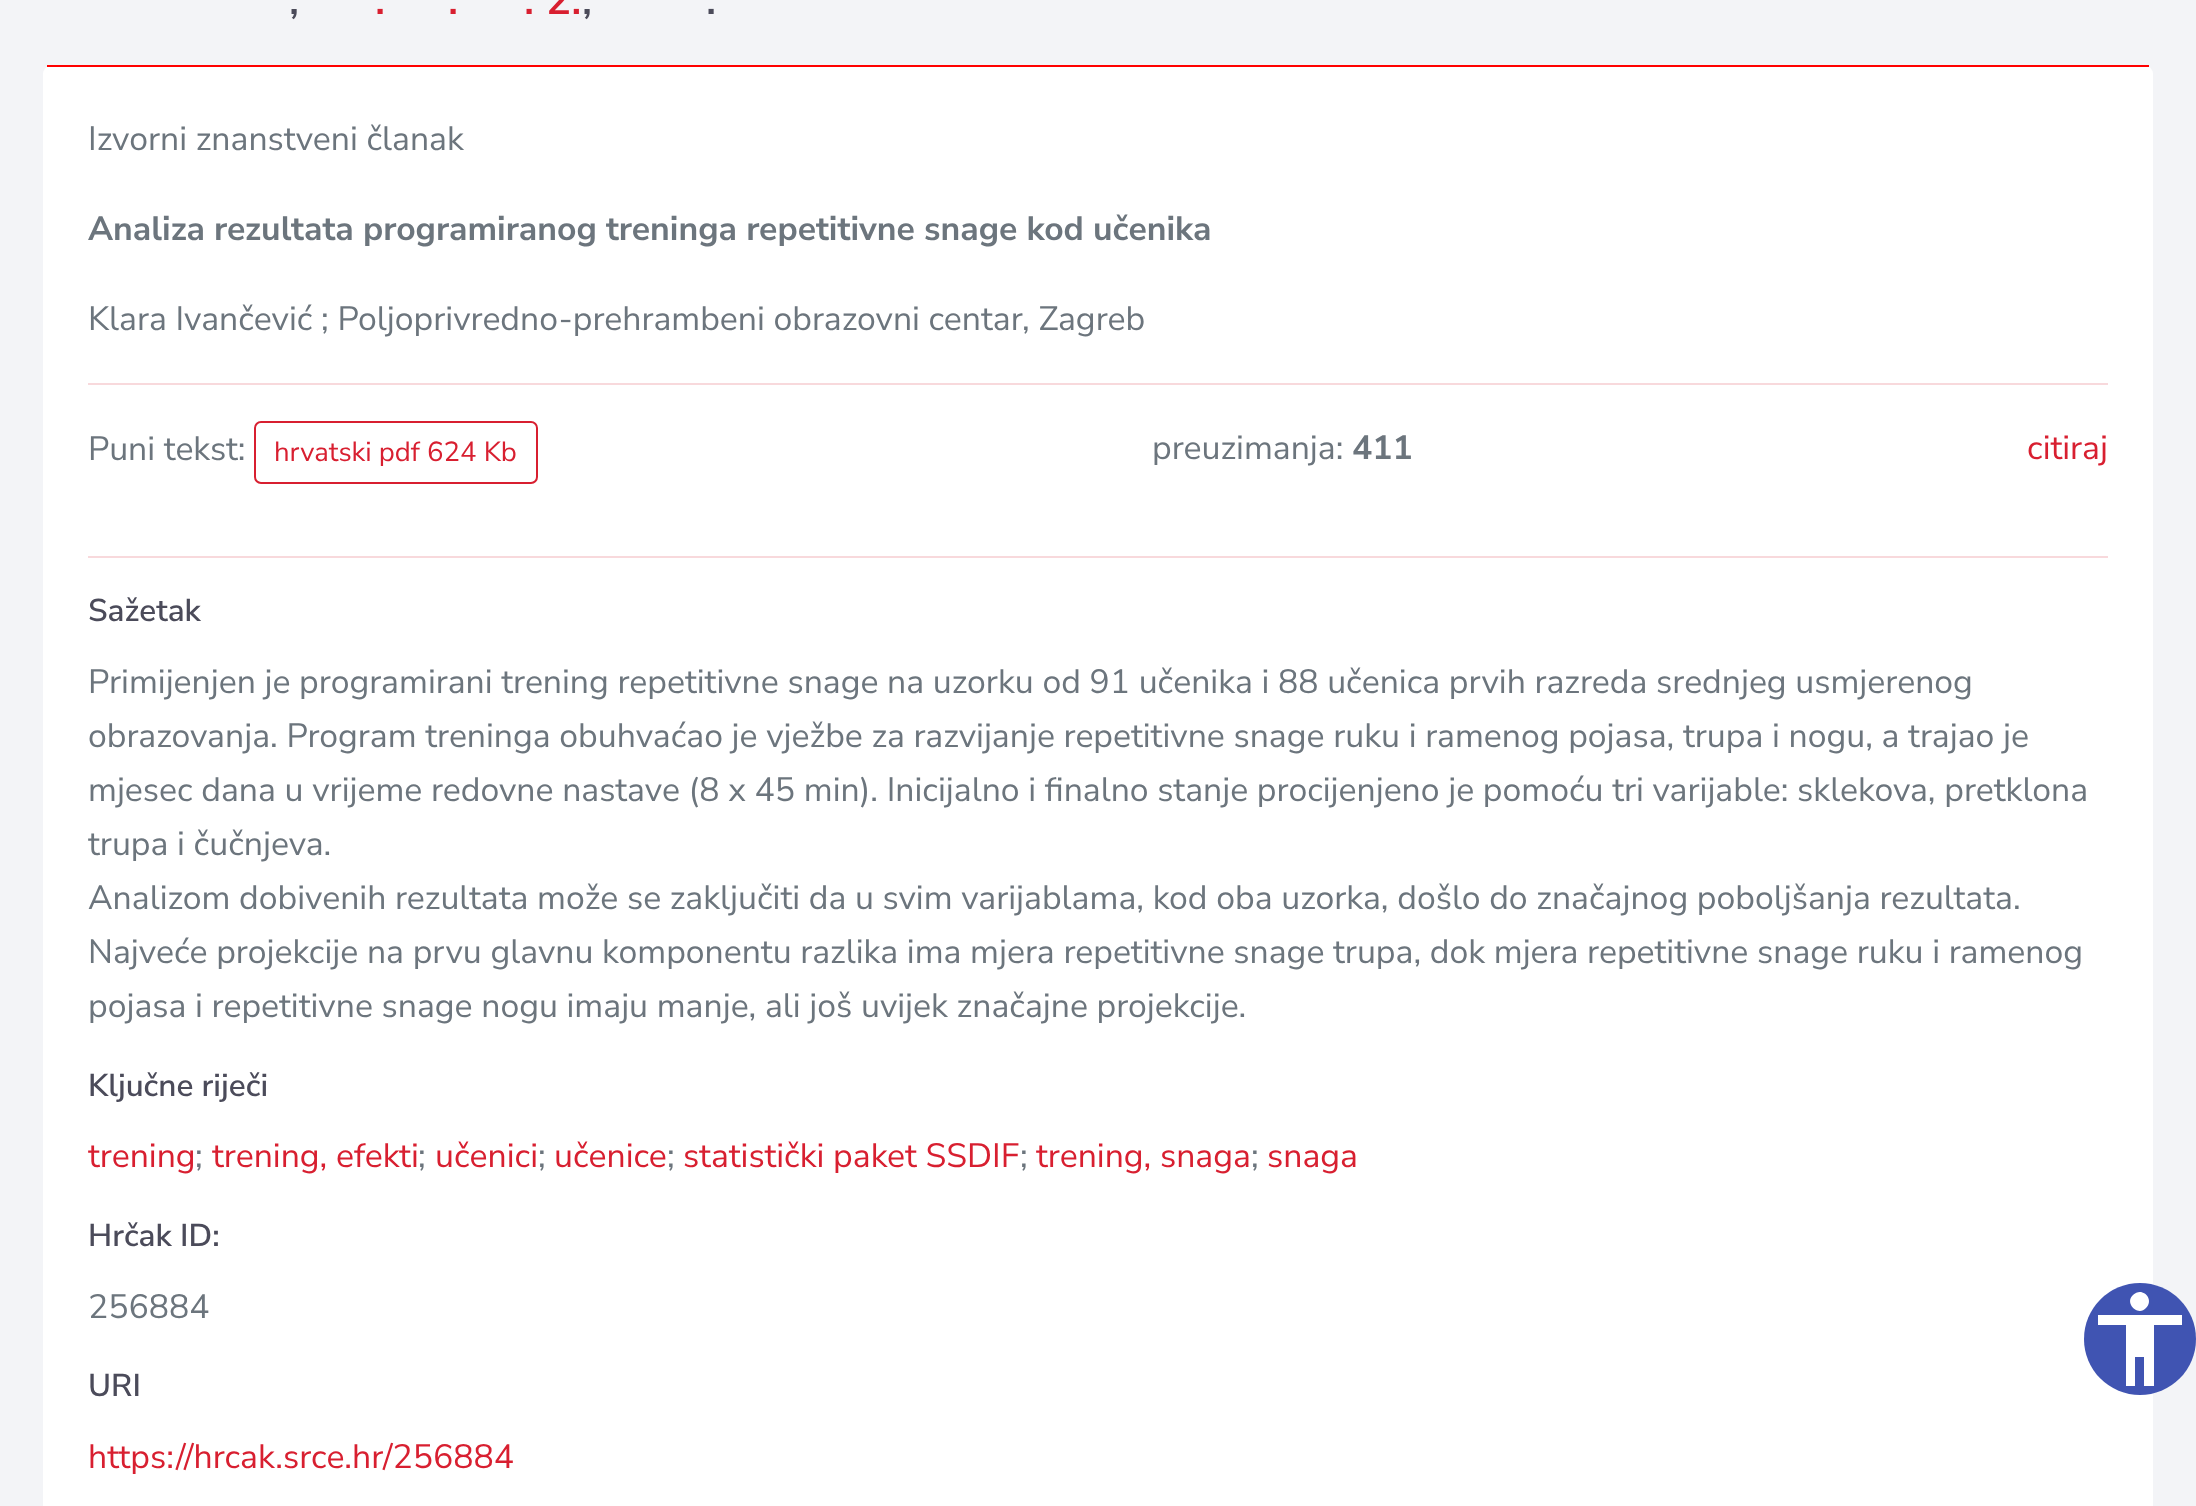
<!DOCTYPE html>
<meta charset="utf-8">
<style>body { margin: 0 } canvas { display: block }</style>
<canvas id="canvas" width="2196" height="1506"></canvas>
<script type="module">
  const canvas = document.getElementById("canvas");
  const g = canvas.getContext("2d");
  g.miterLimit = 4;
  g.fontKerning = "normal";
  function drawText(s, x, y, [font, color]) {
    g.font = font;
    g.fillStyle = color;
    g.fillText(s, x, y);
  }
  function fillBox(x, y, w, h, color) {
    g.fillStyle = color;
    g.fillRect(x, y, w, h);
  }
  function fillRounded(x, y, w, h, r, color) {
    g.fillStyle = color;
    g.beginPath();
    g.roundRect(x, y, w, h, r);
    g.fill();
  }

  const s1 = ["600 43px Nunito Sans", "#4B4B5A"];
  const s2 = ["600 43px Nunito Sans", "#D81F30"];
  const s3 = ["33.75px Nunito Sans", "#6C757D"];
  const s4 = ["bold 33.75px Nunito Sans", "#6C757D"];
  const s5 = ["27.5px Nunito Sans", "#D81F30"];
  const s6 = ["33.75px Nunito Sans", "#D81F30"];
  const s7 = ["600 31.5px Nunito Sans", "#4B4B5A"];

  fillBox(0, 0, 2196, 1506, "#F3F4F7");
  drawText(",", 289, 14, s1);
  drawText(".", 375, 14, s2);
  drawText(".", 448, 14, s2);
  drawText(". 2.", 524, 14, s2);
  drawText(",", 582, 14, s1);
  drawText(".", 706, 14, s1);
  fillRounded(43, 65, 2110, 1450, 9, "#FFFFFF");
  fillBox(47, 65, 2102, 2, "#FF0000");
  drawText("Izvorni znanstveni članak", 88, 150, s3);
  drawText("Analiza rezultata programiranog treninga repetitivne snage kod učenika", 88, 240, s4);
  drawText("Klara Ivančević ; Poljoprivredno-prehrambeni obrazovni centar, Zagreb", 88, 330, s3);
  fillBox(88, 383, 2020, 2, "#F8D9DC");
  drawText("Puni tekst:", 88, 460, s3);
  g.beginPath();
  g.roundRect(255, 422, 282, 61, 6);
  g.strokeStyle = "#D81F30";
  g.lineWidth = 2;
  g.stroke();
  drawText("hrvatski pdf 624 Kb", 274, 461, s5);
  drawText("preuzimanja:", 1152, 459, s3);
  drawText("411", 1352, 459, s4);
  drawText("citiraj", 2027, 459, s6);
  fillBox(88, 556, 2020, 2, "#F8D9DC");
  drawText("Sažetak", 88, 621, s7);
  drawText("Primijenjen je programirani trening repetitivne snage na uzorku od 91 učenika i 88 učenica prvih razreda srednjeg usmjerenog", 88, 693, s3);
  drawText("obrazovanja. Program treninga obuhvaćao je vježbe za razvijanje repetitivne snage ruku i ramenog pojasa, trupa i nogu, a trajao je", 88, 747, s3);
  drawText("mjesec dana u vrijeme redovne nastave (8 x 45 min). Inicijalno i finalno stanje procijenjeno je pomoću tri varijable: sklekova, pretklona", 88, 801, s3);
  drawText("trupa i čučnjeva.", 88, 855, s3);
  drawText("Analizom dobivenih rezultata može se zaključiti da u svim varijablama, kod oba uzorka, došlo do značajnog poboljšanja rezultata.", 88, 909, s3);
  drawText("Najveće projekcije na prvu glavnu komponentu razlika ima mjera repetitivne snage trupa, dok mjera repetitivne snage ruku i ramenog", 88, 963, s3);
  drawText("pojasa i repetitivne snage nogu imaju manje, ali još uvijek značajne projekcije.", 88, 1017, s3);
  drawText("Ključne riječi", 88, 1096, s7);
  drawText("trening", 88, 1167, s6);
  drawText(";", 195, 1167, s3);
  drawText("trening, efekti", 212, 1167, s6);
  drawText(";", 418, 1167, s3);
  drawText("učenici", 435, 1167, s6);
  drawText(";", 538, 1167, s3);
  drawText("učenice", 554, 1167, s6);
  drawText(";", 667, 1167, s3);
  drawText("statistički paket SSDIF", 683, 1167, s6);
  drawText(";", 1020, 1167, s3);
  drawText("trening, snaga", 1036, 1167, s6);
  drawText(";", 1251, 1167, s3);
  drawText("snaga", 1267, 1167, s6);
  drawText("Hrčak ID:", 88, 1246, s7);
  drawText("256884", 88, 1318, s3);
  drawText("URI", 88, 1396, s7);
  drawText("https://hrcak.srce.hr/256884", 88, 1468, s6);
  g.fillStyle = "#4054B2";
  g.beginPath();
  g.arc(2140, 1339, 56, 0, Math.PI * 2);
  g.fill();
  g.fillStyle = "#FFFFFF";
  g.beginPath();
  g.moveTo(2182, 1325);
  g.lineTo(2154, 1325);
  g.lineTo(2154, 1386);
  g.lineTo(2144, 1386);
  g.lineTo(2144, 1357);
  g.lineTo(2135, 1357);
  g.lineTo(2135, 1386);
  g.lineTo(2126, 1386);
  g.lineTo(2126, 1325);
  g.lineTo(2098, 1325);
  g.lineTo(2098, 1315);
  g.lineTo(2182, 1315);
  g.closePath();
  g.moveTo(2133, 1295);
  g.bezierCurveTo(2142, 1286, 2155, 1299, 2146, 1308);
  g.bezierCurveTo(2138, 1317, 2124, 1303, 2133, 1295);
  g.closePath();
  g.fill();
</script>
